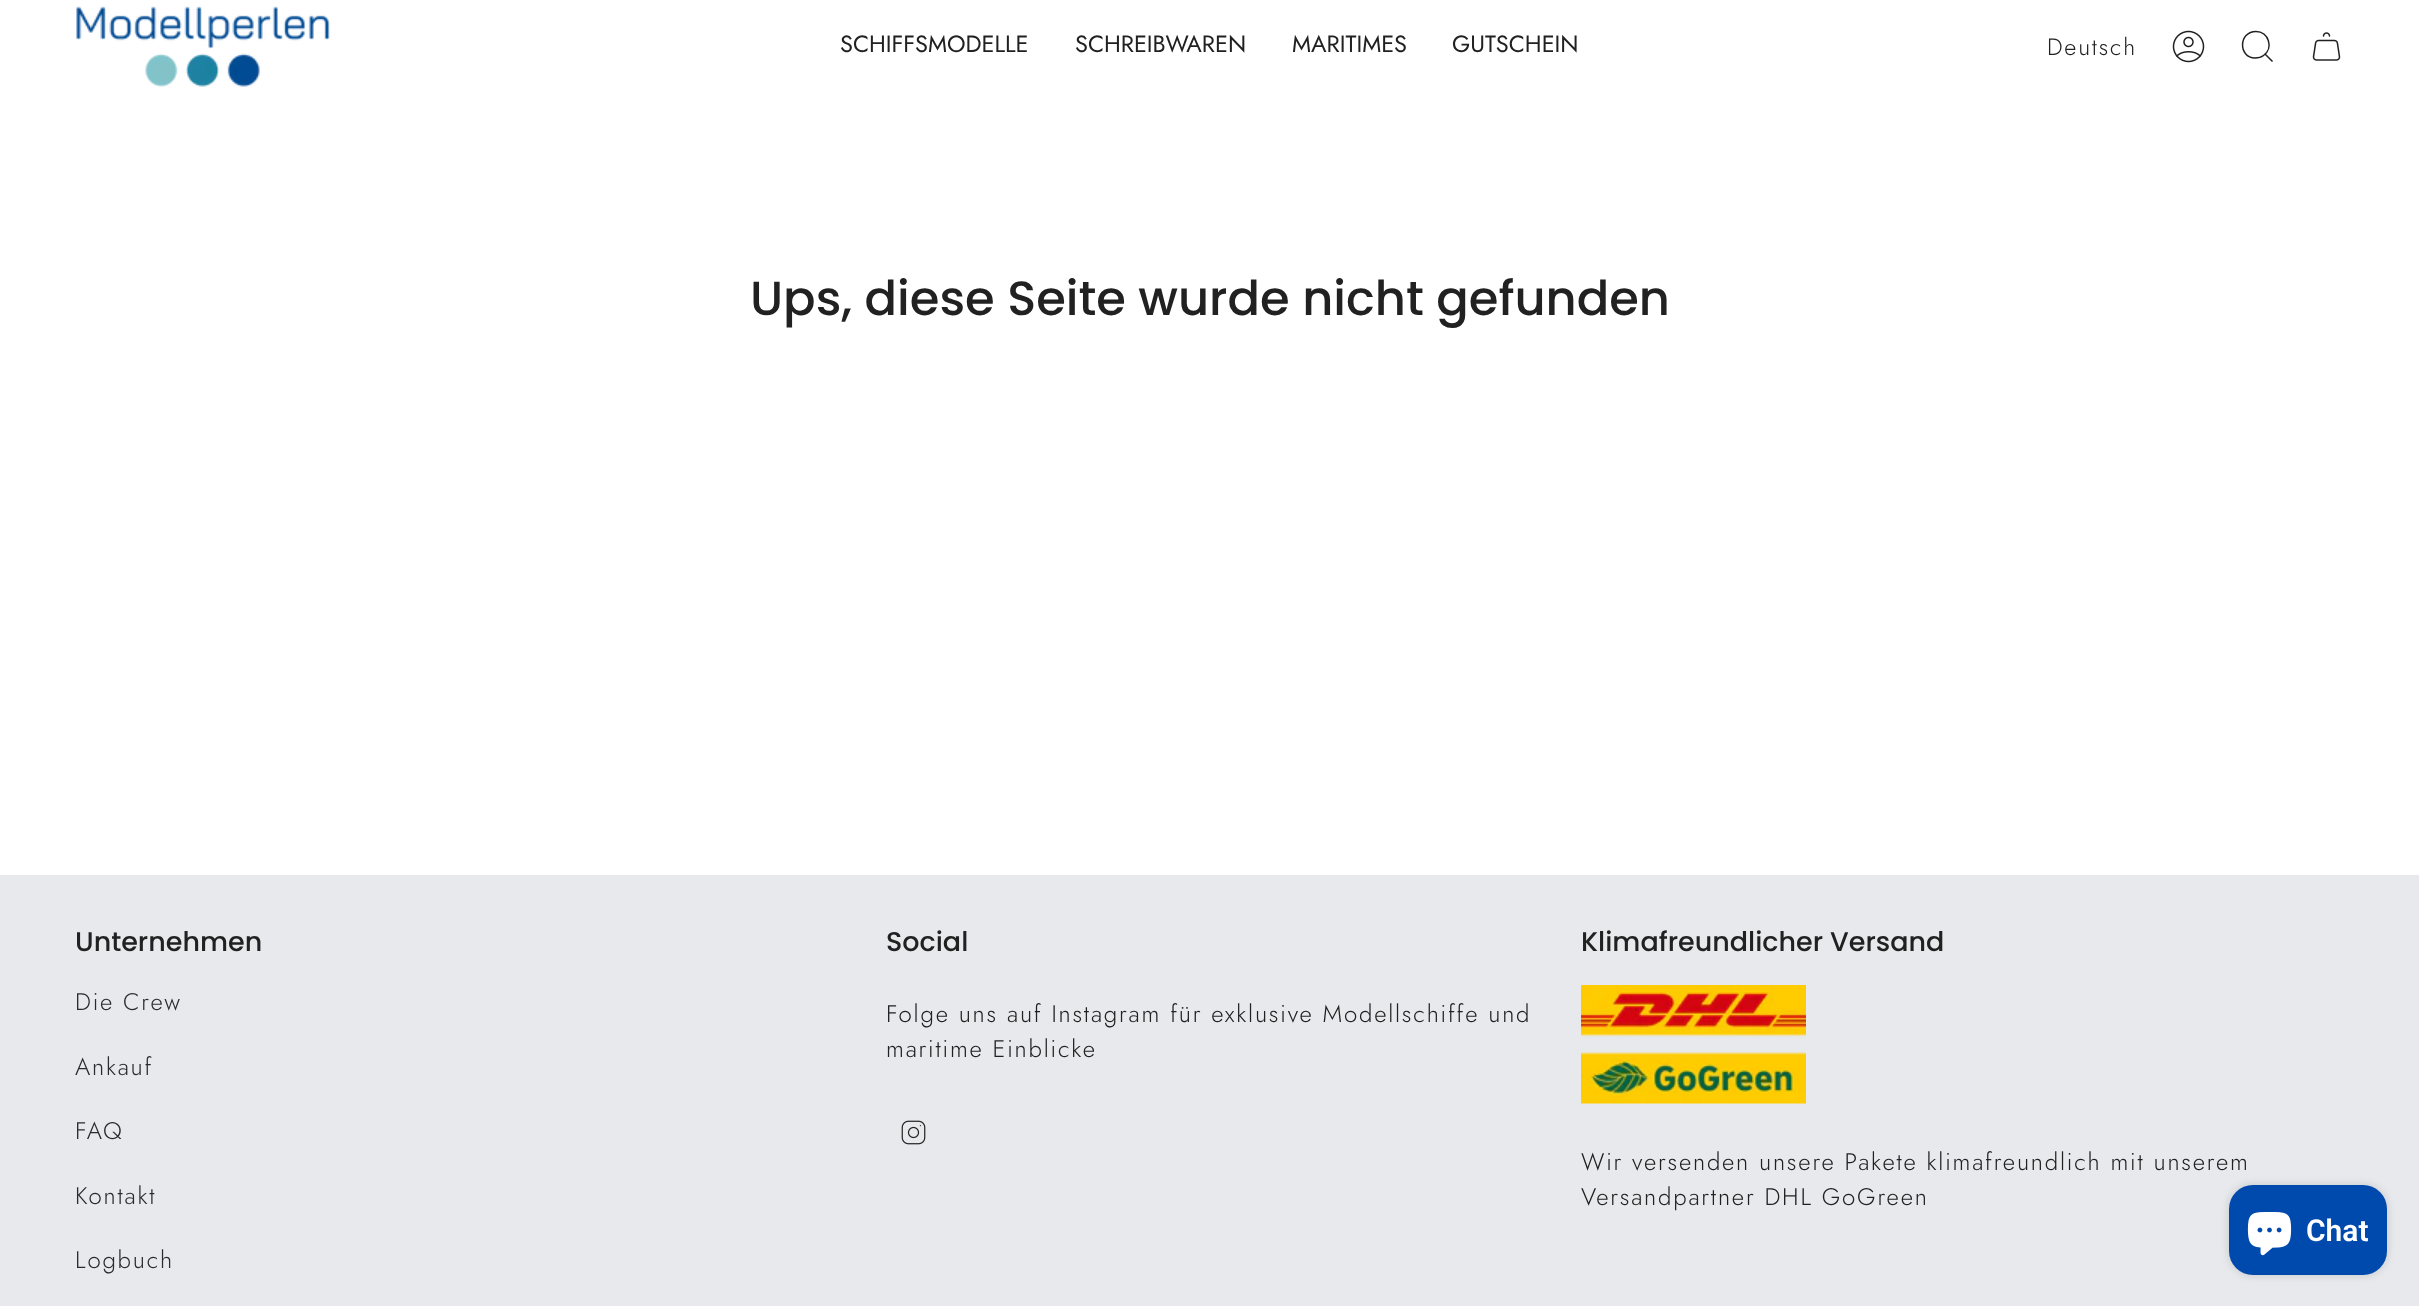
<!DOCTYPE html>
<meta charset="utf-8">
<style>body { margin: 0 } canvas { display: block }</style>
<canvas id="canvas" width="2419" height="1306"></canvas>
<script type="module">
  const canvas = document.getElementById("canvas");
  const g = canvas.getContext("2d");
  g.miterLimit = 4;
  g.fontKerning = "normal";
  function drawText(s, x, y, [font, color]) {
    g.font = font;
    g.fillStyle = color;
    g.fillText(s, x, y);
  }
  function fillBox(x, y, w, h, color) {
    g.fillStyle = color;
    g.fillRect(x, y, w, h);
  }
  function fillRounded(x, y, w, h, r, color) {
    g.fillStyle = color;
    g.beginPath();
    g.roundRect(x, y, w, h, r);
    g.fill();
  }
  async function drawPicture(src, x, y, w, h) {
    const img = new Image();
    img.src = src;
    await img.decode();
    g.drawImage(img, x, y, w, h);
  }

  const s1 = ["23.5px Jost", "#212121"];
  const s2 = ["300 23.5px Jost", "#212121"];
  const s3 = ["500 48px Poppins", "#212121"];
  const s4 = ["500 27px Poppins", "#212121"];
  const s5 = ["300 24px Jost", "#282C2E"];
  const s6 = ["300 24px Jost", "#212121"];
  const s7 = ["600 30px Roboto", "#FFFFFF"];

  fillBox(0, 0, 2419, 1306, "#FFFFFF");
  await drawPicture("pic1.png", 76, 6, 254, 81);
  drawText("SCHIFFSMODELLE", 840, 52, s1);
  drawText("SCHREIBWAREN", 1075, 52, s1);
  drawText("MARITIMES", 1292, 52, s1);
  drawText("GUTSCHEIN", 1452, 52, s1);
  g.letterSpacing = "1.8px";
  drawText("Deutsch", 2047, 55, s2);
  await drawPicture("pic2.png", 2172, 30, 33, 33);
  g.beginPath();
  g.moveTo(2256, 31.5);
  g.bezierCurveTo(2268.5, 31.5, 2274, 48, 2263.5, 55.5);
  g.bezierCurveTo(2261, 57.5, 2258, 58, 2255, 58);
  g.bezierCurveTo(2238, 57.5, 2238.5, 31.5, 2256, 31.5);
  g.closePath();
  g.moveTo(2265, 54);
  g.lineTo(2272.5, 61.5);
  g.strokeStyle = "#212121";
  g.lineWidth = 1.5;
  g.stroke();
  await drawPicture("pic3.png", 2312, 32, 29, 29);
  g.letterSpacing = "0px";
  drawText("Ups, diese Seite wurde nicht gefunden", 750, 315, s3);
  fillBox(0, 875, 2419, 431, "#E7E9EC");
  drawText("Unternehmen", 75, 951, s4);
  g.letterSpacing = "1.8px";
  drawText("Die Crew", 75, 1010, s5);
  drawText("Ankauf", 75, 1075, s5);
  drawText("FAQ", 75, 1139, s5);
  drawText("Kontakt", 75, 1204, s5);
  drawText("Logbuch", 75, 1268, s5);
  g.letterSpacing = "0px";
  drawText("Social", 886, 951, s4);
  g.letterSpacing = "1.8px";
  drawText("Folge uns auf Instagram für exklusive Modellschiffe und", 886, 1022, s6);
  drawText("maritime Einblicke", 886, 1057, s6);
  await drawPicture("pic4.png", 901, 1120, 25, 25);
  g.letterSpacing = "0px";
  drawText("Klimafreundlicher Versand", 1581, 951, s4);
  await drawPicture("pic5.png", 1581, 985, 225, 119);
  g.letterSpacing = "1.8px";
  drawText("Wir versenden unsere Pakete klimafreundlich mit unserem", 1581, 1170, s6);
  drawText("Versandpartner DHL GoGreen", 1581, 1205, s6);
  g.fillStyle = "rgba(0, 0, 0, 0.15)";
  g.filter = "blur(4px)";
  g.beginPath();
  g.roundRect(2229, 1185, 158, 90, 24);
  g.fill();
  g.filter = "none";
  fillRounded(2229, 1185, 158, 90, 24, "#004AAD");
  await drawPicture("pic6.png", 2247, 1212, 45, 44);
  g.letterSpacing = "0px";
  drawText("Chat", 2306, 1241, s7);
</script>
